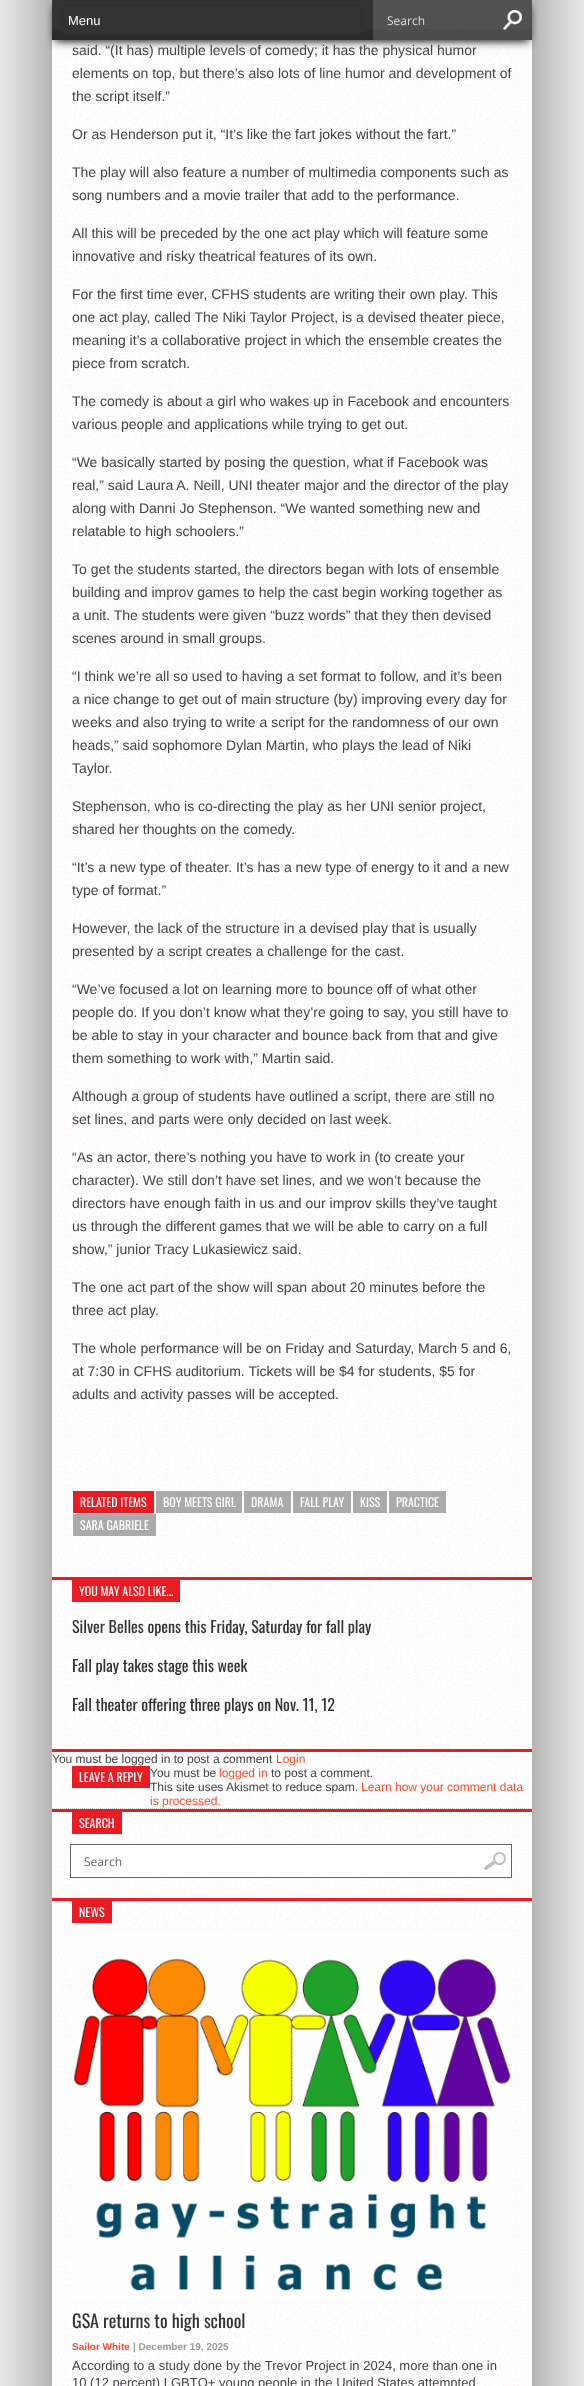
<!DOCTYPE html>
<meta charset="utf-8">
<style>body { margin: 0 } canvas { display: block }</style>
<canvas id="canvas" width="584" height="2386"></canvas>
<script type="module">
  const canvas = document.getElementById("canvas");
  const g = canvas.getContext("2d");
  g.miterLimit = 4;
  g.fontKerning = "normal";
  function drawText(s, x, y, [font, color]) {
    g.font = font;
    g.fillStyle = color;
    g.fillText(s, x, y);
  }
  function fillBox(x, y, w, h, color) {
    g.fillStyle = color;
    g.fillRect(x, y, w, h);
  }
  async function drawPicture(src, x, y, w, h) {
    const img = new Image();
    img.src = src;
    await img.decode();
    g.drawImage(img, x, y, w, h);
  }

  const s1 = ["13px Liberation Sans", "#FFFFFF"];
  const s2 = ["12px Open Sans", "#DDDDDD"];
  const s3 = ["14px Liberation Sans", "#444444"];
  const s4 = ["12px Oswald", "#FFFFFF"];
  const s5 = ["16px Oswald", "#333333"];
  const s6 = ["12px Liberation Sans", "#444444"];
  const s7 = ["12px Liberation Sans", "#FA4B2A"];
  const s8 = ["12px Open Sans", "#666666"];
  const s9 = ["18px Oswald", "#333333"];
  const s10 = ["bold 10px Liberation Sans", "#FA4B2A"];
  const s11 = ["bold 10px Liberation Sans", "#999999"];
  const s12 = ["13px Liberation Sans", "#444444"];

  fillBox(0, 0, 584, 2386, "#FFFFFF");
  g.fillStyle = "#000000";
  g.filter = "blur(75px)";
  g.beginPath();
  g.rect(92, -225, 400, 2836);
  g.fill();
  g.filter = "none";
  await drawPicture("pic3.png", 52, 40, 480, 2346);
  g.filter = "blur(5px)";
  g.beginPath();
  g.rect(55, 7, 474, 34);
  g.fill();
  g.filter = "none";
  fillBox(52, 0, 480, 40, "#333333");
  await drawPicture("pic1.png", 52, 29, 480, 11);
  g.beginPath();
  g.roundRect(62.5, 5.5, 299, 29, 2.5);
  g.fill();
  g.strokeStyle = "#2D2F31";
  g.stroke();
  drawText("Menu", 68, 25, s1);
  fillBox(373, 0, 159, 40, "rgba(255, 255, 255, 0.15)");
  await drawPicture("pic2.png", 503, 10, 19, 20);
  drawText("Search", 387, 25, s2);
  drawText("said. “(It has) multiple levels of comedy; it has the physical humor", 72, 55, s3);
  drawText("elements on top, but there’s also lots of line humor and development of", 72, 78, s3);
  drawText("the script itself.”", 72, 101, s3);
  drawText("Or as Henderson put it, “It’s like the fart jokes without the fart.”", 72, 139, s3);
  drawText("The play will also feature a number of multimedia components such as", 72, 177, s3);
  drawText("song numbers and a movie trailer that add to the performance.", 72, 200, s3);
  drawText("All this will be preceded by the one act play which will feature some", 72, 238, s3);
  drawText("innovative and risky theatrical features of its own.", 72, 261, s3);
  drawText("For the first time ever, CFHS students are writing their own play. This", 72, 299, s3);
  drawText("one act play, called The Niki Taylor Project, is a devised theater piece,", 72, 322, s3);
  drawText("meaning it’s a collaborative project in which the ensemble creates the", 72, 345, s3);
  drawText("piece from scratch.", 72, 368, s3);
  drawText("The comedy is about a girl who wakes up in Facebook and encounters", 72, 406, s3);
  drawText("various people and applications while trying to get out.", 72, 429, s3);
  drawText("“We basically started by posing the question, what if Facebook was", 72, 467, s3);
  drawText("real,” said Laura A. Neill, UNI theater major and the director of the play", 72, 490, s3);
  drawText("along with Danni Jo Stephenson. “We wanted something new and", 72, 513, s3);
  drawText("relatable to high schoolers.”", 72, 536, s3);
  drawText("To get the students started, the directors began with lots of ensemble", 72, 574, s3);
  drawText("building and improv games to help the cast begin working together as", 72, 597, s3);
  drawText("a unit. The students were given “buzz words” that they then devised", 72, 620, s3);
  drawText("scenes around in small groups.", 72, 643, s3);
  drawText("“I think we’re all so used to having a set format to follow, and it’s been", 72, 681, s3);
  drawText("a nice change to get out of main structure (by) improving every day for", 72, 704, s3);
  drawText("weeks and also trying to write a script for the randomness of our own", 72, 727, s3);
  drawText("heads,” said sophomore Dylan Martin, who plays the lead of Niki", 72, 750, s3);
  drawText("Taylor.", 72, 773, s3);
  drawText("Stephenson, who is co-directing the play as her UNI senior project,", 72, 811, s3);
  drawText("shared her thoughts on the comedy.", 72, 834, s3);
  drawText("“It’s a new type of theater. It’s has a new type of energy to it and a new", 72, 872, s3);
  drawText("type of format.”", 72, 895, s3);
  drawText("However, the lack of the structure in a devised play that is usually", 72, 933, s3);
  drawText("presented by a script creates a challenge for the cast.", 72, 956, s3);
  drawText("“We’ve focused a lot on learning more to bounce off of what other", 72, 994, s3);
  drawText("people do. If you don’t know what they’re going to say, you still have to", 72, 1017, s3);
  drawText("be able to stay in your character and bounce back from that and give", 72, 1040, s3);
  drawText("them something to work with,” Martin said.", 72, 1063, s3);
  drawText("Although a group of students have outlined a script, there are still no", 72, 1101, s3);
  drawText("set lines, and parts were only decided on last week.", 72, 1124, s3);
  drawText("“As an actor, there’s nothing you have to work in (to create your", 72, 1162, s3);
  drawText("character). We still don’t have set lines, and we won’t because the", 72, 1185, s3);
  drawText("directors have enough faith in us and our improv skills they’ve taught", 72, 1208, s3);
  drawText("us through the different games that we will be able to carry on a full", 72, 1231, s3);
  drawText("show,” junior Tracy Lukasiewicz said.", 72, 1254, s3);
  drawText("The one act part of the show will span about 20 minutes before the", 72, 1292, s3);
  drawText("three act play.", 72, 1315, s3);
  drawText("The whole performance will be on Friday and Saturday, March 5 and 6,", 72, 1353, s3);
  drawText("at 7:30 in CFHS auditorium. Tickets will be $4 for students, $5 for", 72, 1376, s3);
  drawText("adults and activity passes will be accepted.", 72, 1399, s3);
  fillBox(73, 1491, 81, 22, "#E91B23");
  drawText("RELATED ITEMS", 80, 1507, s4);
  fillBox(156, 1491, 86, 22, "#AAAAAA");
  drawText("BOY MEETS GIRL", 163, 1507, s4);
  fillBox(244, 1491, 47, 22, "#AAAAAA");
  drawText("DRAMA", 251, 1507, s4);
  fillBox(293, 1491, 58, 22, "#AAAAAA");
  drawText("FALL PLAY", 300, 1507, s4);
  fillBox(353, 1491, 34, 22, "#AAAAAA");
  drawText("KISS", 360, 1507, s4);
  fillBox(389, 1491, 57, 22, "#AAAAAA");
  drawText("PRACTICE", 396, 1507, s4);
  fillBox(73, 1514, 83, 22, "#AAAAAA");
  drawText("SARA GABRIELE", 80, 1530, s4);
  fillBox(52, 1577, 480, 3, "#E91B23");
  fillBox(72, 1580, 108, 22, "#E91B23");
  drawText("YOU MAY ALSO LIKE...", 79, 1596, s4);
  drawText("Silver Belles opens this Friday, Saturday for fall play", 72, 1633, s5);
  drawText("Fall play takes stage this week", 72, 1672, s5);
  drawText("Fall theater offering three plays on Nov. 11, 12", 72, 1711, s5);
  fillBox(52, 1749, 480, 3, "#E91B23");
  drawText("You must be logged in to post a comment", 52, 1763, s6);
  drawText("Login", 276, 1763, s7);
  fillBox(72, 1766, 78, 22, "#E91B23");
  drawText("LEAVE A REPLY", 79, 1782, s4);
  drawText("You must be", 150, 1777, s6);
  drawText("logged in", 219, 1777, s7);
  drawText("to post a comment.", 271, 1777, s6);
  drawText("This site uses Akismet to reduce spam.", 150, 1791, s6);
  drawText("Learn how your comment data", 361, 1791, s7);
  drawText("is processed.", 150, 1805, s7);
  g.beginPath();
  g.moveTo(52, 1808.5);
  g.lineTo(532, 1808.5);
  g.strokeStyle = "#CCCCCC";
  g.setLineDash([1, 1]);
  g.stroke();
  fillBox(52, 1809, 480, 3, "#E91B23");
  fillBox(72, 1812, 50, 22, "#E91B23");
  drawText("SEARCH", 79, 1828, s4);
  fillBox(71, 1845, 440, 32, "#FFFFFF");
  await drawPicture("pic4.png", 484, 1852, 22, 18);
  g.strokeStyle = "#666666";
  g.setLineDash([]);
  g.strokeRect(70.5, 1844.5, 441, 33);
  drawText("Search", 84, 1866, s8);
  fillBox(52, 1898, 480, 3, "#E91B23");
  fillBox(72, 1901, 40, 22, "#E91B23");
  drawText("NEWS", 79, 1917, s4);
  await drawPicture("pic5.png", 72, 1933, 440, 367);
  drawText("GSA returns to high school", 72, 2328, s9);
  drawText("Sailor White", 72, 2350, s10);
  drawText("| December 19, 2025", 133, 2350, s11);
  drawText("According to a study done by the Trevor Project in 2024, more than one in", 72, 2370, s12);
  drawText("10 (12 percent) LGBTQ+ young people in the United States attempted", 72, 2387, s12);
</script>
